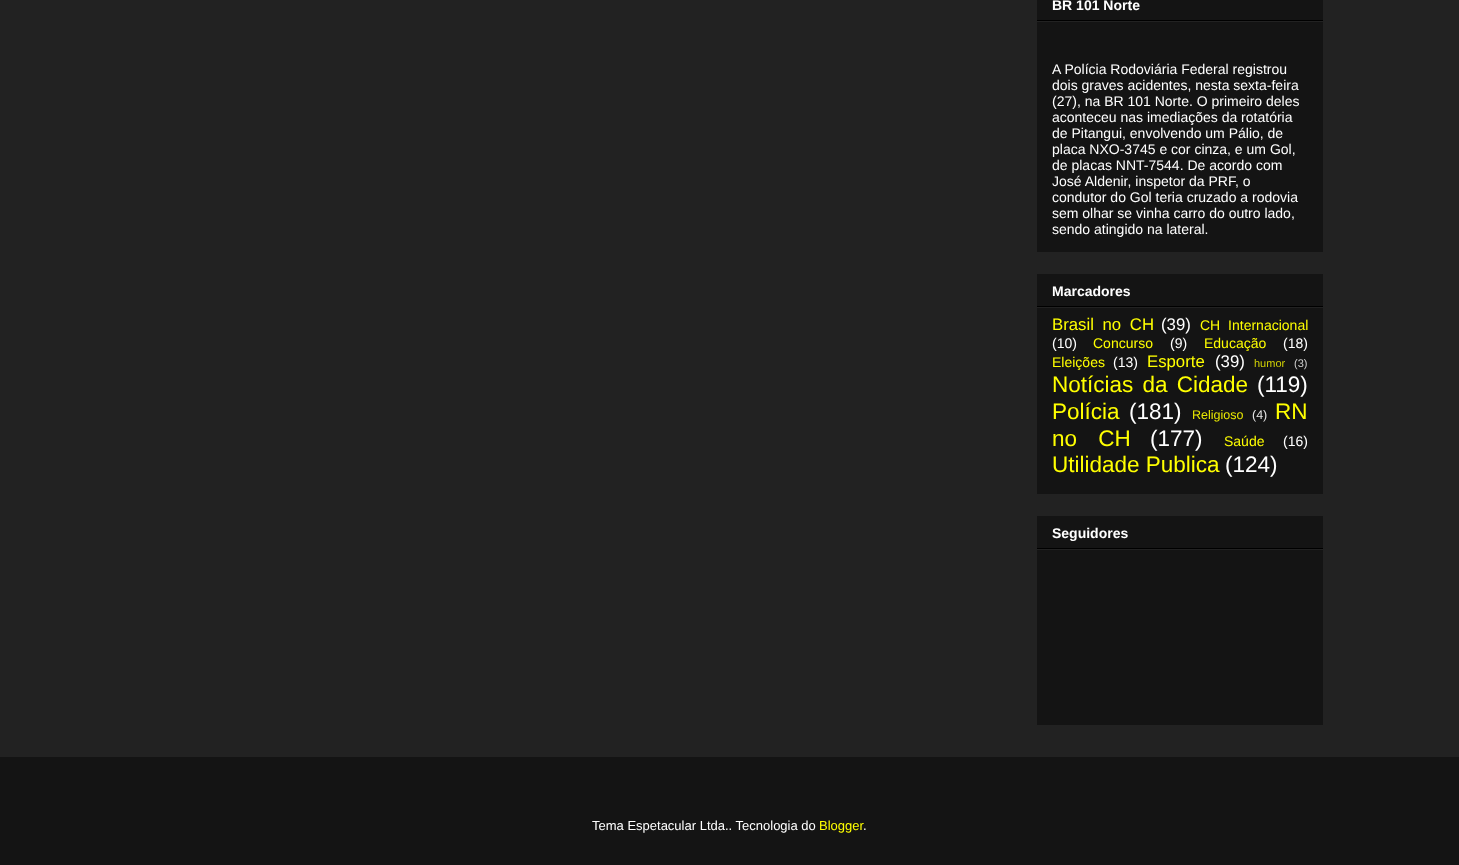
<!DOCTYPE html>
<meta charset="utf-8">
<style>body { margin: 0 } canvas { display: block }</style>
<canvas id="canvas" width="1459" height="865"></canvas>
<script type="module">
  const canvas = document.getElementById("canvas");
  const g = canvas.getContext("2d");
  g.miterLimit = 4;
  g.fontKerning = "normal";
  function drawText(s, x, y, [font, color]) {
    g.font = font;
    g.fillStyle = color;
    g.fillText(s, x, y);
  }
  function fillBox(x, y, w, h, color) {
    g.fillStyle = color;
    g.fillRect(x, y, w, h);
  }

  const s1 = ["bold 14px Liberation Sans", "#FFFFFF"];
  const s2 = ["14px Liberation Sans", "#FFFFFF"];
  const s3 = ["16.75px Liberation Sans", "#FFFF00"];
  const s4 = ["16.75px Liberation Sans", "#FFFFFF"];
  const s5 = ["14px Liberation Sans", "#FFFF00"];
  const s6 = ["11px Liberation Sans", "#D0D004"];
  const s7 = ["11px Liberation Sans", "#D0D0D0"];
  const s8 = ["22.5px Liberation Sans", "#FFFF00"];
  const s9 = ["22.5px Liberation Sans", "#FFFFFF"];
  const s10 = ["12.5px Liberation Sans", "#E8E802"];
  const s11 = ["12.5px Liberation Sans", "#E8E8E8"];
  const s12 = ["13px Liberation Sans", "#FFFFFF"];
  const s13 = ["13px Liberation Sans", "#FFFF00"];

  fillBox(0, 0, 1459, 865, "#222222");
  fillBox(1037, 0, 286, 252, "#141414");
  fillBox(1037, 20, 286, 1, "#000000");
  drawText("BR 101 Norte", 1052, 10, s1);
  fillBox(1037, 21, 286, 1, "#222222");
  drawText("A Polícia Rodoviária Federal registrou", 1052, 74, s2);
  drawText("dois graves acidentes, nesta sexta-feira", 1052, 90, s2);
  drawText("(27), na BR 101 Norte. O primeiro deles", 1052, 106, s2);
  drawText("aconteceu nas imediações da rotatória", 1052, 122, s2);
  drawText("de Pitangui, envolvendo um Pálio, de", 1052, 138, s2);
  drawText("placa NXO-3745 e cor cinza, e um Gol,", 1052, 154, s2);
  drawText("de placas NNT-7544. De acordo com", 1052, 170, s2);
  drawText("José Aldenir, inspetor da PRF, o", 1052, 186, s2);
  drawText("condutor do Gol teria cruzado a rodovia", 1052, 202, s2);
  drawText("sem olhar se vinha carro do outro lado,", 1052, 218, s2);
  drawText("sendo atingido na lateral.", 1052, 234, s2);
  fillBox(1037, 274, 286, 220, "#141414");
  fillBox(1037, 306, 286, 1, "#000000");
  drawText("Marcadores", 1052, 296, s1);
  fillBox(1037, 307, 286, 1, "#222222");
  g.wordSpacing = "4px";
  drawText("Brasil no CH", 1052, 330, s3);
  g.wordSpacing = "0px";
  drawText("(39)", 1161, 330, s4);
  g.wordSpacing = "4px";
  drawText("CH Internacional", 1200, 330, s5);
  g.wordSpacing = "0px";
  drawText("(10)", 1052, 348, s2);
  drawText("Concurso", 1093, 348, s5);
  drawText("(9)", 1170, 348, s2);
  drawText("Educação", 1204, 348, s5);
  drawText("(18)", 1283, 348, s2);
  drawText("Eleições", 1052, 367, s5);
  drawText("(13)", 1113, 367, s2);
  drawText("Esporte", 1147, 367, s3);
  drawText("(39)", 1215, 367, s4);
  drawText("humor", 1254, 367, s6);
  drawText("(3)", 1294, 367, s7);
  g.wordSpacing = "3px";
  drawText("Notícias da Cidade", 1052, 392, s8);
  g.wordSpacing = "0px";
  drawText("(119)", 1257, 392, s9);
  drawText("Polícia", 1052, 419, s8);
  drawText("(181)", 1129, 419, s9);
  drawText("Religioso", 1192, 419, s10);
  drawText("(4)", 1252, 419, s11);
  drawText("RN", 1275, 419, s8);
  g.wordSpacing = "15px";
  drawText("no CH", 1052, 446, s8);
  g.wordSpacing = "0px";
  drawText("(177)", 1150, 446, s9);
  drawText("Saúde", 1224, 446, s5);
  drawText("(16)", 1283, 446, s2);
  drawText("Utilidade Publica", 1052, 472, s8);
  drawText("(124)", 1225, 472, s9);
  fillBox(1037, 516, 286, 209, "#141414");
  fillBox(1037, 548, 286, 1, "#000000");
  drawText("Seguidores", 1052, 538, s1);
  fillBox(1037, 549, 286, 1, "#222222");
  fillBox(0, 757, 1459, 108, "#141414");
  drawText("Tema Espetacular Ltda.. Tecnologia do", 592, 830, s12);
  drawText("Blogger", 819, 830, s13);
  drawText(".", 863, 830, s12);
</script>
